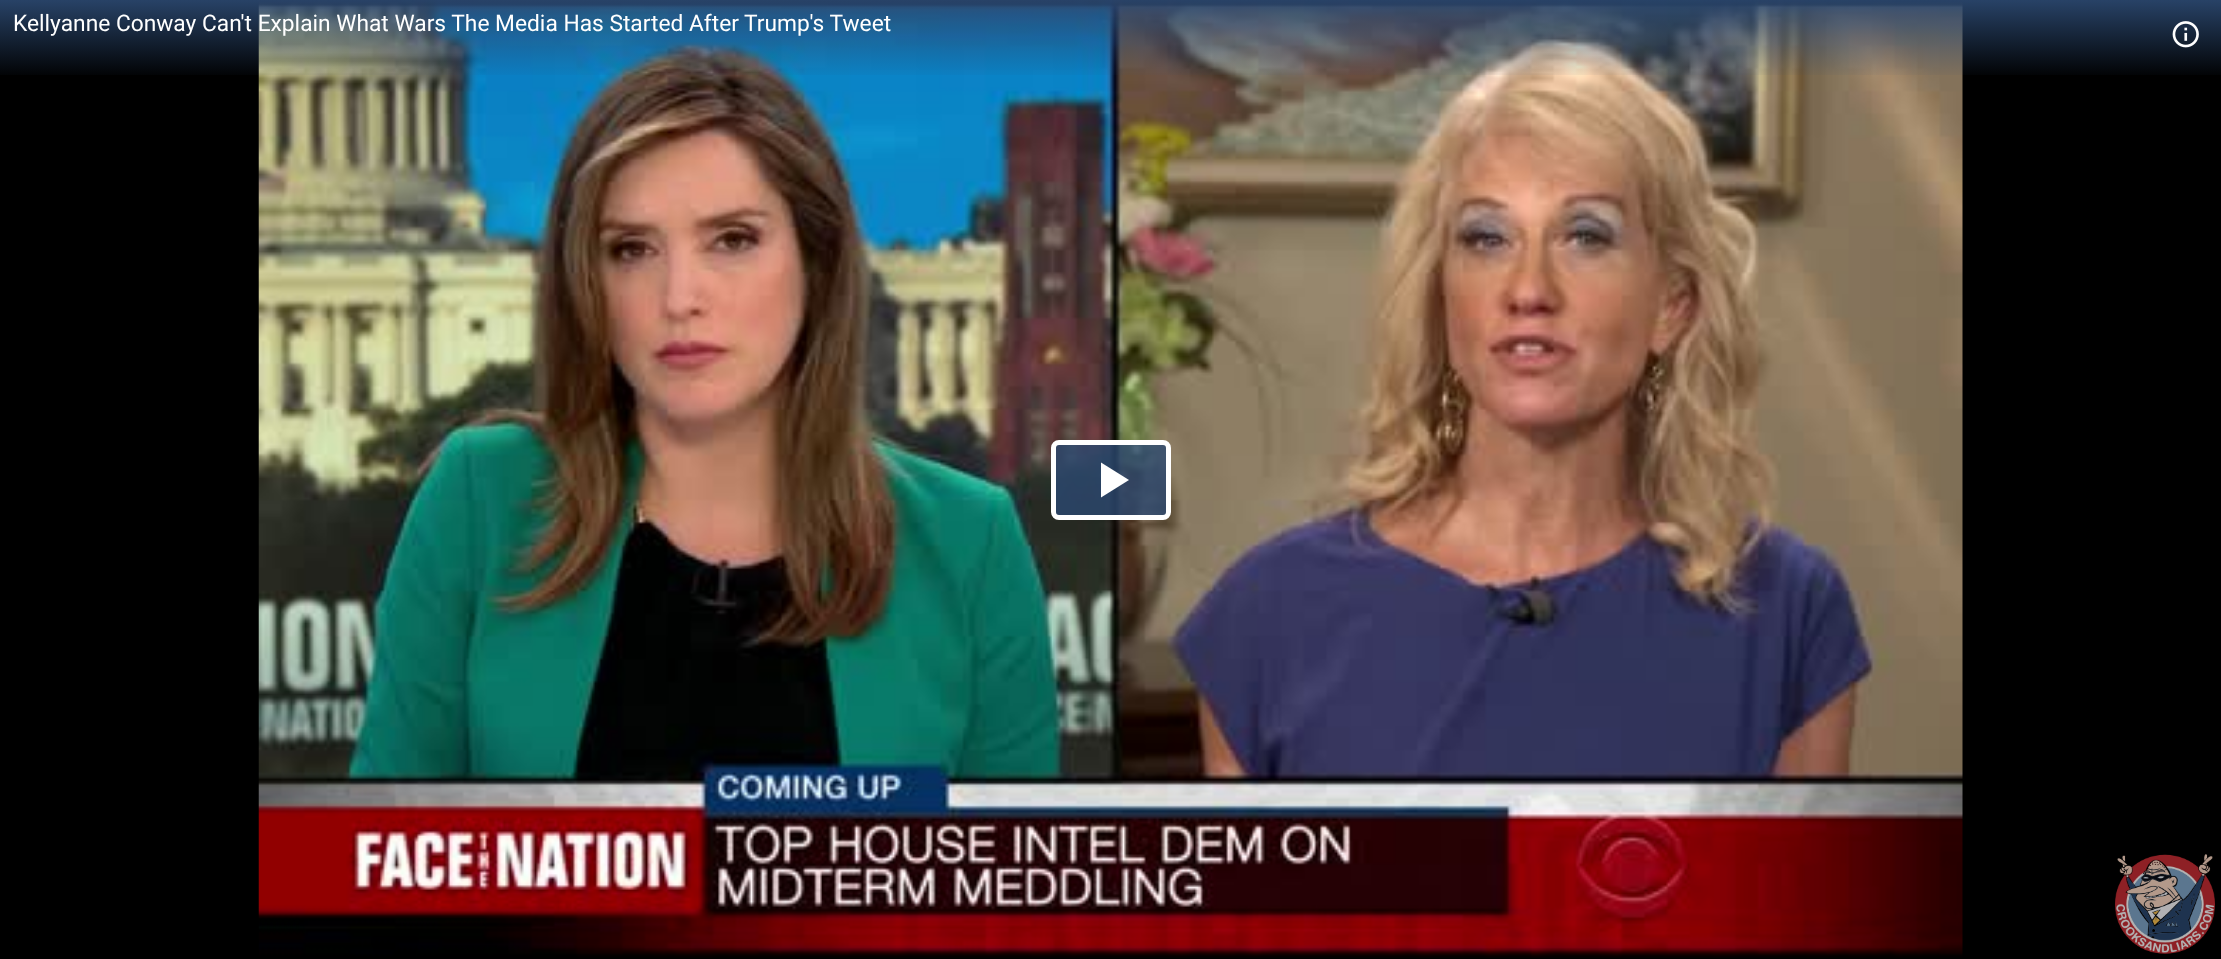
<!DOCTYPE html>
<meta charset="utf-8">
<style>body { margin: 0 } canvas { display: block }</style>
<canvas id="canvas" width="2221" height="959"></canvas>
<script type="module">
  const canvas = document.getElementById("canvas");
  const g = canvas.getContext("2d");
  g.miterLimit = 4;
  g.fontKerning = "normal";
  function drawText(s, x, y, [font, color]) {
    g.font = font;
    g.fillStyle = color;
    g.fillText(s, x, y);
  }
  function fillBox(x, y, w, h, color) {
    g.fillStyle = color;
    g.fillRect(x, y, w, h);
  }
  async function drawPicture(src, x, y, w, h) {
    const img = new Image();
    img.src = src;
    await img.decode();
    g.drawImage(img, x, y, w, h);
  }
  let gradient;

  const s1 = ["22.75px Roboto", "#FFFFFF"];

  fillBox(0, 0, 2221, 959, "#000000");
  await drawPicture("pic1.png", 258, 0, 1705, 958);
  gradient = g.createLinearGradient(1111, 0, 1111, 75);
  gradient.addColorStop(0.01, "rgba(44, 73, 113, 0.9)");
  gradient.addColorStop(1, "rgba(44, 73, 113, 0.05)");
  g.fillStyle = gradient;
  g.fillRect(0, 0, 2221, 75);
  drawText("Kellyanne Conway Can't Explain What Wars The Media Has Started After Trump's Tweet", 13, 31, s1);
  await drawPicture("pic2.png", 2172, 21, 27, 27);
  g.fillStyle = "rgba(44, 73, 113, 0.8)";
  g.beginPath();
  g.roundRect(1053.5, 442.5, 115, 75, 5.5);
  g.fill();
  g.strokeStyle = "#FFFFFF";
  g.lineWidth = 5;
  g.stroke();
  g.fillStyle = "#FFFFFF";
  g.beginPath();
  g.moveTo(1101, 462.5);
  g.lineTo(1101, 497.5);
  g.lineTo(1129, 480);
  g.closePath();
  g.fill();
  await drawPicture("pic3.png", 2115, 854, 100, 100);
</script>
